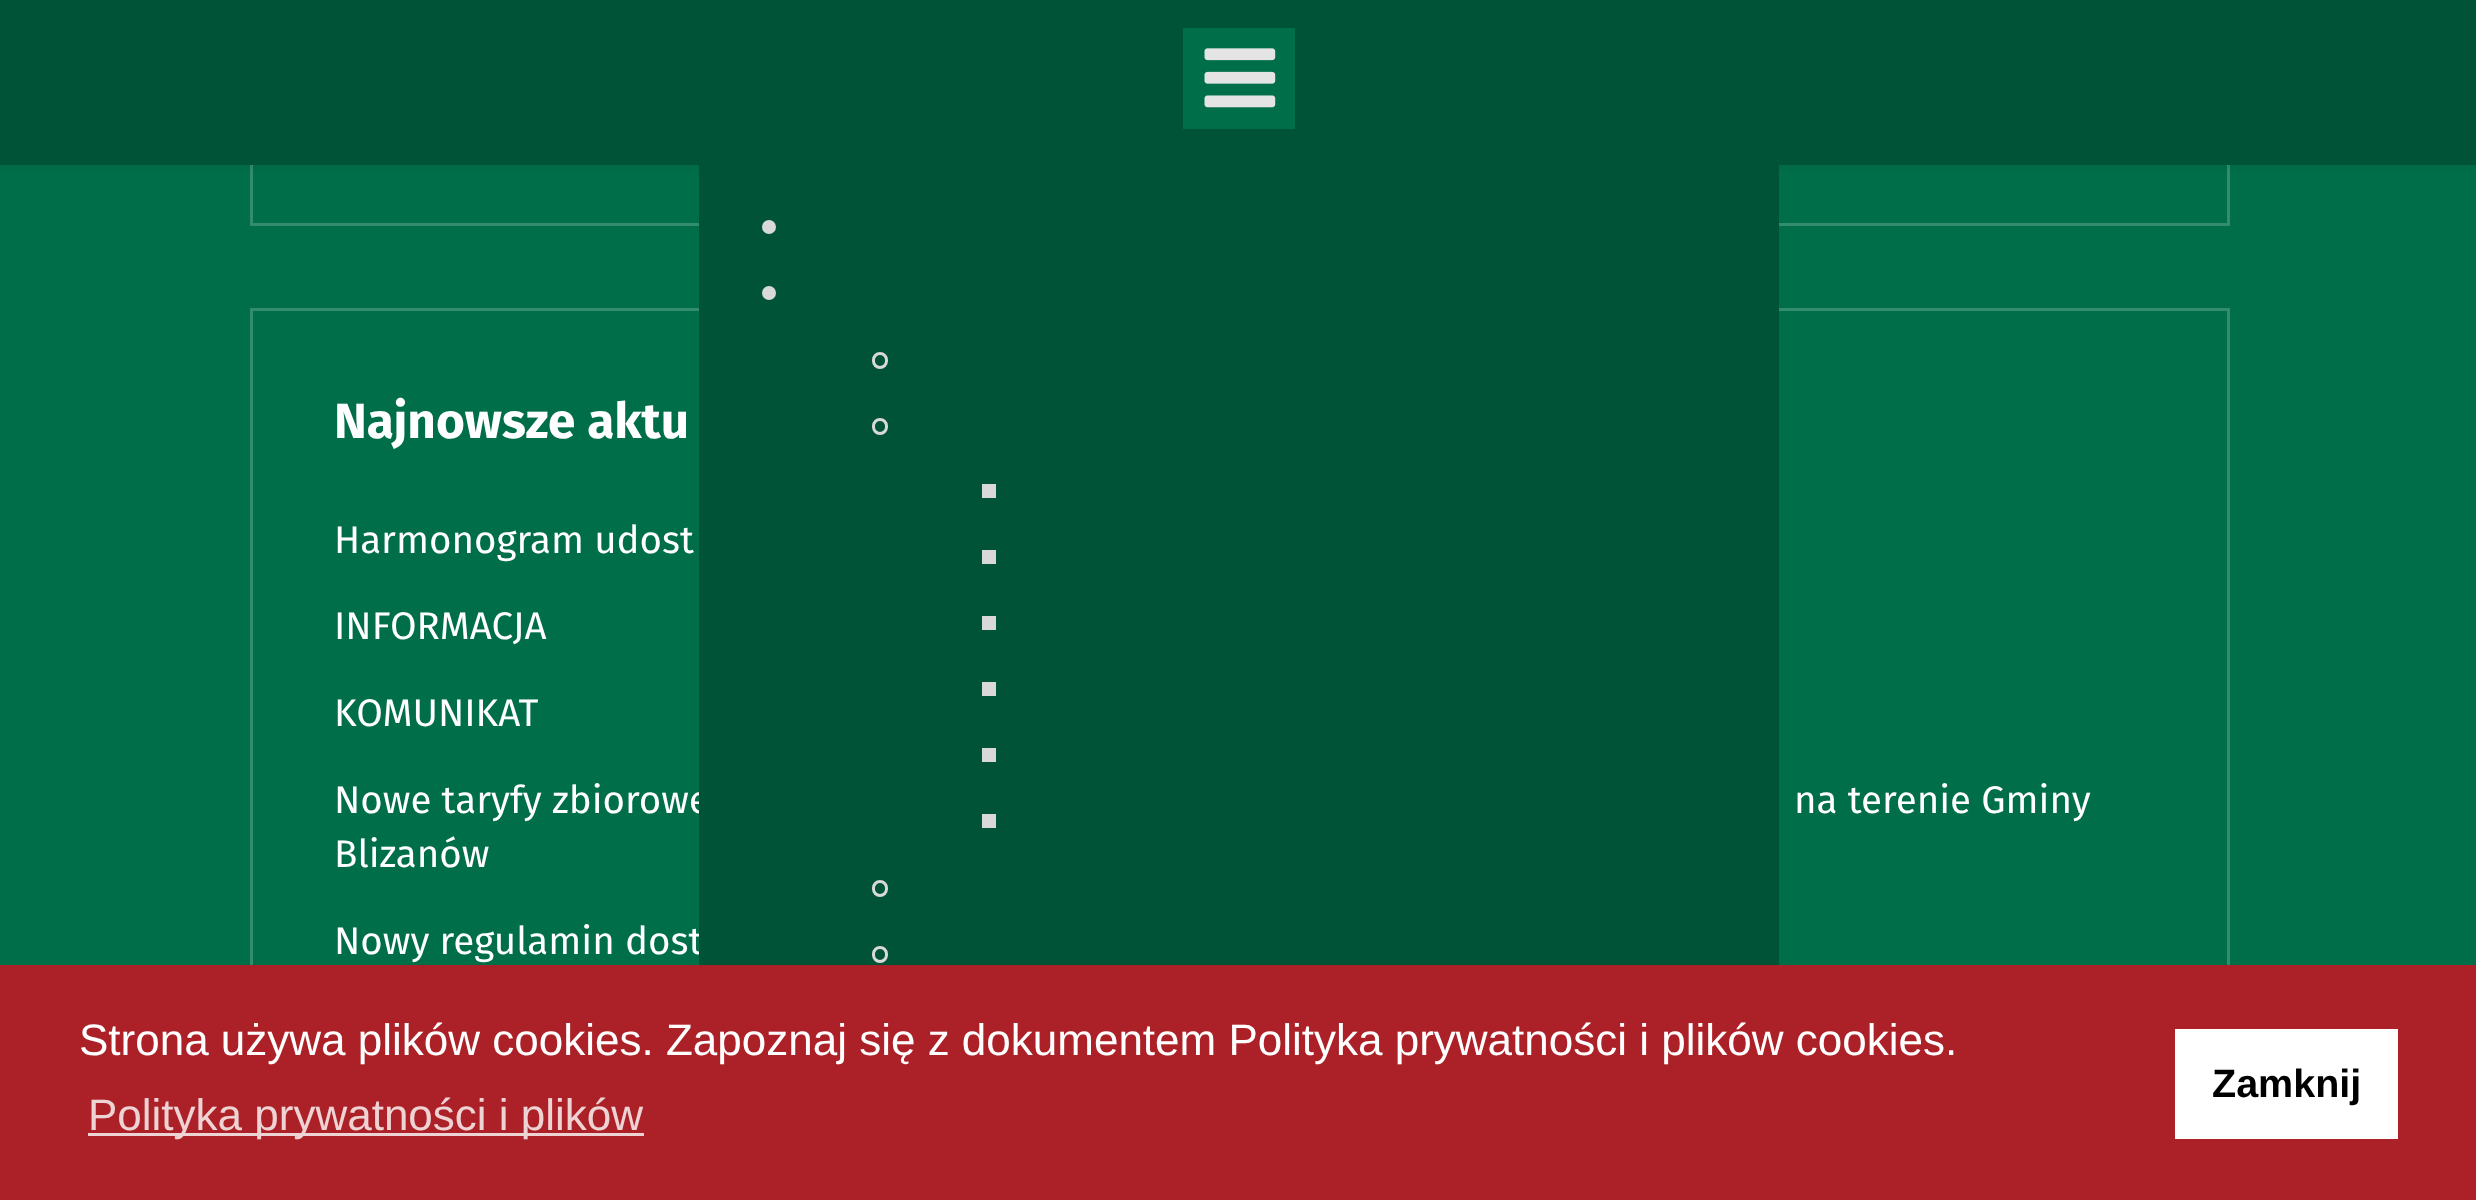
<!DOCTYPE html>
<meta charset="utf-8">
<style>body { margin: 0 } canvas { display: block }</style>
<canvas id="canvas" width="2476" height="1200"></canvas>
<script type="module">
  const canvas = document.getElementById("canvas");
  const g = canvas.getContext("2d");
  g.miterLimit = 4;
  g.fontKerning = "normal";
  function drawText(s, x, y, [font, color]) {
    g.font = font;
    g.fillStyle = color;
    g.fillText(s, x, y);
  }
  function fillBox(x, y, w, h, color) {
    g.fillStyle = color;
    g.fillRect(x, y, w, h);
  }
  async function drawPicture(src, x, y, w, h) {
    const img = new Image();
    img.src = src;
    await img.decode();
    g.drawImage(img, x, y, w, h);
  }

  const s1 = ["38.5px Fira Sans", "#FFFFFF"];
  const s2 = ["bold 49.5px Fira Sans", "#FFFFFF"];
  const s3 = ["44px Liberation Sans", "#FFFFFF"];
  const s4 = ["44px Liberation Sans", "#EED3D4"];
  const s5 = ["bold 39.5px Liberation Sans", "#000000"];

  fillBox(0, 0, 2476, 1200, "#006F49");
  g.strokeStyle = "#338C6D";
  g.lineWidth = 3;
  g.strokeRect(251.5, -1.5, 1977, 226);
  g.fillStyle = "rgba(0, 0, 0, 0.1)";
  g.filter = "blur(5.5px)";
  g.beginPath();
  g.rect(0, 0, 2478, 165);
  g.fill();
  g.filter = "none";
  fillBox(0, 0, 2476, 165, "#005337");
  fillBox(1183, 28, 112, 101, "#006F49");
  await drawPicture("pic1.png", 1204, 48, 72, 60);
  g.strokeRect(251.5, 309.5, 1977, 830);
  drawText("Nowe taryfy zbiorowe", 334, 813, s1);
  drawText("Nowy regulamin dost", 334, 954, s1);
  fillBox(699, 165, 1080, 800, "#005337");
  g.fillStyle = "#D9D9D9";
  g.beginPath();
  g.arc(769, 227, 7, 0, Math.PI * 2);
  g.fill();
  g.beginPath();
  g.arc(769, 293, 7, 0, Math.PI * 2);
  g.fill();
  g.beginPath();
  g.roundRect(873.5, 353.5, 13, 14, 6.5);
  g.strokeStyle = "#D9D9D9";
  g.stroke();
  g.beginPath();
  g.roundRect(873.5, 419.5, 13, 14, 6.5);
  g.stroke();
  fillBox(982, 484, 14, 14, "#D9D9D9");
  fillBox(982, 550, 14, 14, "#D9D9D9");
  fillBox(982, 616, 14, 14, "#D9D9D9");
  fillBox(982, 682, 14, 14, "#D9D9D9");
  fillBox(982, 748, 14, 14, "#D9D9D9");
  fillBox(982, 814, 14, 14, "#D9D9D9");
  g.beginPath();
  g.roundRect(873.5, 881.5, 13, 14, 6.5);
  g.stroke();
  g.beginPath();
  g.roundRect(873.5, 947.5, 13, 14, 6.5);
  g.stroke();
  drawText("Najnowsze aktu", 334, 438, s2);
  drawText("Harmonogram udost", 334, 553, s1);
  drawText("INFORMACJA", 334, 639, s1);
  drawText("KOMUNIKAT", 334, 726, s1);
  drawText("na terenie Gminy", 1794, 813, s1);
  drawText("Blizanów", 334, 867, s1);
  fillBox(0, 965, 2476, 235, "#AC2127");
  drawText("Strona używa plików cookies. Zapoznaj się z dokumentem Polityka prywatności i plików cookies.", 79, 1055, s3);
  fillBox(88, 1133, 556, 3, "#EED3D4");
  drawText("Polityka prywatności i plików", 88, 1130, s4);
  fillBox(2175, 1029, 223, 110, "#FFFFFF");
  drawText("Zamknij", 2212, 1097, s5);
</script>
